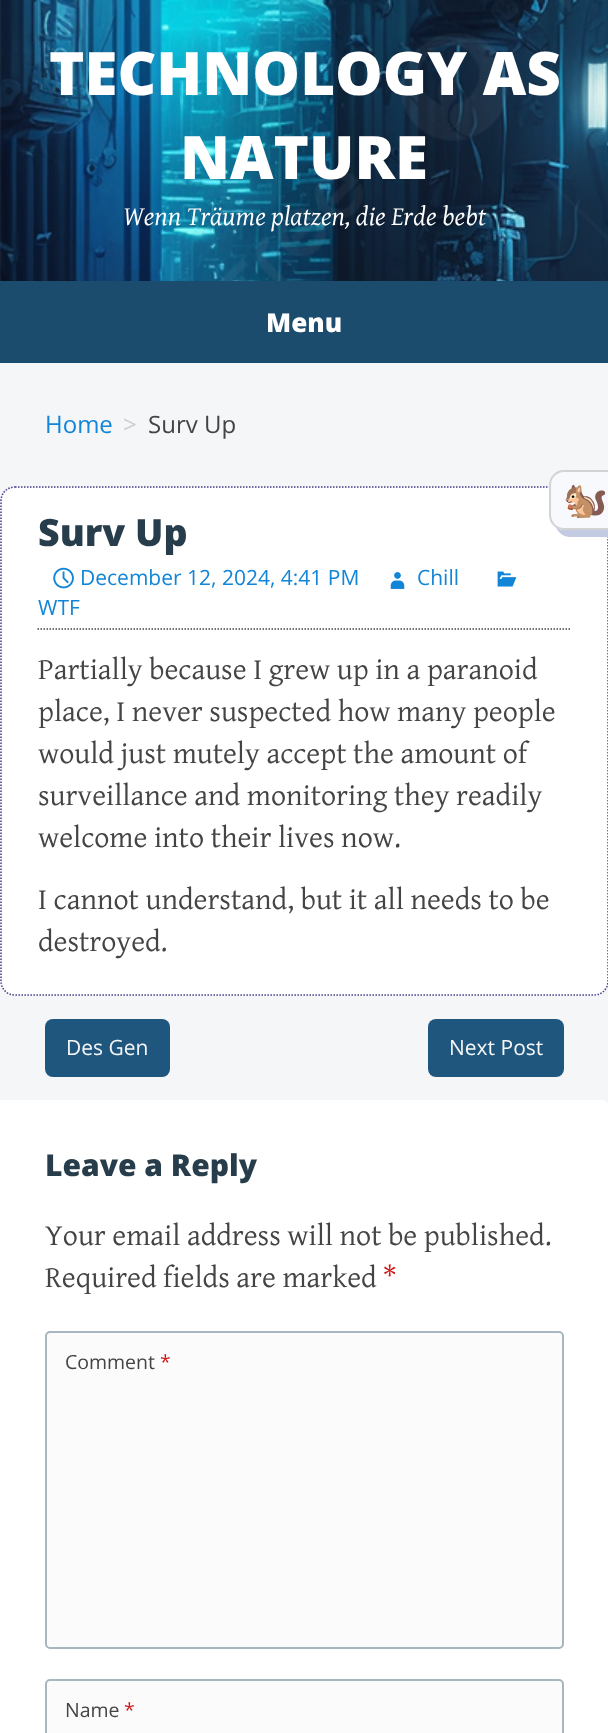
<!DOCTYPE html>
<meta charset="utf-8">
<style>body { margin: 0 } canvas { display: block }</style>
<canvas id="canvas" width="608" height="1733"></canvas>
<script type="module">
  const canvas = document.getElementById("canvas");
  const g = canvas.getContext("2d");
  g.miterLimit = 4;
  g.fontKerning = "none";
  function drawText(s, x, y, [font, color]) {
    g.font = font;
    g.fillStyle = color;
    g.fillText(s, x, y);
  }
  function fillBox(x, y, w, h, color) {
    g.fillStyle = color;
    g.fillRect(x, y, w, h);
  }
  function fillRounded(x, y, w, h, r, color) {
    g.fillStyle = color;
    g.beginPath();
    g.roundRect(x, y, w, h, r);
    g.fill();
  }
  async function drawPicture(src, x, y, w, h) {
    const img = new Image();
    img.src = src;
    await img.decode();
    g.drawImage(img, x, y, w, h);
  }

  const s1 = ["800 60px Open Sans", "#FFFFFF"];
  const s2 = ["italic 27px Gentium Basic", "#FFFFFF"];
  const s3 = ["800 26px Open Sans", "#FFFFFF"];
  const s4 = ["24px Open Sans", "#1185D7"];
  const s5 = ["24px Open Sans", "#CCCDCE"];
  const s6 = ["24px Open Sans", "#444444"];
  const s7 = ["bold 36px Noto Color Emoji", "#283D4B"];
  const s8 = ["800 37.5px Open Sans", "#283D4B"];
  const s9 = ["21px Open Sans", "#1185D7"];
  const s10 = ["30px Gentium Basic", "#444444"];
  const s11 = ["21px Open Sans", "#F5F6F7"];
  const s12 = ["800 30px Open Sans", "#283D4B"];
  const s13 = ["30px Gentium Basic", "#D01717"];
  const s14 = ["19.5px Open Sans", "#444444"];
  const s15 = ["19.5px Open Sans", "#D01717"];

  fillBox(0, 0, 608, 1733, "#F5F6F7");
  await drawPicture("pic1.png", 0, 0, 608, 281);
  drawText("TECHNOLOGY AS", 49, 95, s1);
  drawText("NATURE", 180, 179, s1);
  drawText("Wenn Träume platzen, die Erde bebt", 123, 225, s2);
  fillBox(0, 281, 608, 82, "#1B4B6D");
  drawText("Menu", 266, 332, s3);
  drawText("Home", 45, 433, s4);
  drawText(">", 123, 433, s5);
  drawText("Surv Up", 148, 433, s6);
  fillRounded(2, 488, 606, 507, 14, "#FFFFFF");
  g.beginPath();
  g.moveTo(15, 487);
  g.lineTo(594, 487);
  g.bezierCurveTo(602, 487, 608, 493, 608, 501);
  g.lineTo(608, 981);
  g.bezierCurveTo(608, 989, 602, 995, 594, 995);
  g.lineTo(15, 995);
  g.bezierCurveTo(7, 995, 1, 989, 1, 981);
  g.lineTo(1, 501);
  g.bezierCurveTo(1, 493, 7, 487, 15, 487);
  g.closePath();
  g.strokeStyle = "#483D8B";
  g.lineWidth = 1.5;
  g.setLineDash([1.5, 1.5]);
  g.stroke();
  g.fillStyle = "#C3CBE3";
  g.beginPath();
  g.moveTo(556, 527);
  g.bezierCurveTo(558, 533, 564, 537, 570, 537);
  g.lineTo(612, 537);
  g.bezierCurveTo(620, 537, 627, 530, 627, 522);
  g.lineTo(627, 492);
  g.bezierCurveTo(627, 487, 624, 482, 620, 479);
  g.lineTo(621, 484);
  g.lineTo(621, 514);
  g.bezierCurveTo(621, 523, 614, 530, 606, 530);
  g.lineTo(564, 530);
  g.bezierCurveTo(561, 530, 558, 529, 556, 527);
  g.closePath();
  g.fill();
  g.fillStyle = "#F7F9FC";
  g.beginPath();
  g.roundRect(550, 471, 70, 58, 14);
  g.fill();
  g.strokeStyle = "#D3D3D3";
  g.lineWidth = 2;
  g.setLineDash([]);
  g.stroke();
  drawText("🐿️", 563, 512, s7);
  drawText("Surv Up", 38, 546, s8);
  g.beginPath();
  g.moveTo(37.5, 629);
  g.lineTo(571.5, 629);
  g.strokeStyle = "#444444";
  g.lineWidth = 1.5;
  g.setLineDash([1.5, 1.5]);
  g.stroke();
  await drawPicture("pic2.png", 53, 567, 21, 22);
  drawText("December 12, 2024, 4:41 PM", 80, 585, s9);
  await drawPicture("pic3.png", 390, 572, 15, 17);
  drawText("Chill", 417, 585, s9);
  await drawPicture("pic4.png", 497, 571, 20, 16);
  drawText("WTF", 38, 615, s9);
  drawText("Partially because I grew up in a paranoid", 38, 679, s10);
  drawText("place, I never suspected how many people", 38, 721, s10);
  drawText("would just mutely accept the amount of", 38, 763, s10);
  drawText("surveillance and monitoring they readily", 38, 805, s10);
  drawText("welcome into their lives now.", 38, 847, s10);
  drawText("I cannot understand, but it all needs to be", 38, 909, s10);
  drawText("destroyed.", 38, 951, s10);
  fillRounded(45, 1019, 125, 58, 8, "#1F567D");
  drawText("Des Gen", 66, 1055, s11);
  fillRounded(428, 1019, 136, 58, 8, "#1F567D");
  drawText("Next Post", 449, 1055, s11);
  g.fillStyle = "#FFFFFF";
  g.beginPath();
  g.moveTo(0, 1100);
  g.lineTo(601, 1100);
  g.bezierCurveTo(605.5, 1100, 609, 1103.5, 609, 1108);
  g.lineTo(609, 1733);
  g.bezierCurveTo(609, 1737.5, 605.5, 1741, 601, 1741);
  g.lineTo(0, 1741);
  g.closePath();
  g.fill();
  drawText("Leave a Reply", 45, 1176, s12);
  drawText("Your email address will not be published.", 45, 1245, s10);
  drawText("Required fields are marked", 45, 1287, s10);
  drawText("*", 383, 1287, s13);
  g.fillStyle = "#FBFBFB";
  g.beginPath();
  g.roundRect(46, 1332, 517, 316, 4);
  g.fill();
  g.strokeStyle = "#A6B7C0";
  g.lineWidth = 2;
  g.setLineDash([]);
  g.stroke();
  drawText("Comment", 65, 1369, s14);
  drawText("*", 160, 1369, s15);
  fillRounded(47, 1680, 516, 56, 3, "#FBFBFB");
  g.beginPath();
  g.roundRect(46, 1680, 517, 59, 4);
  g.stroke();
  drawText("Name", 65, 1717, s14);
  drawText("*", 124, 1717, s15);
</script>
